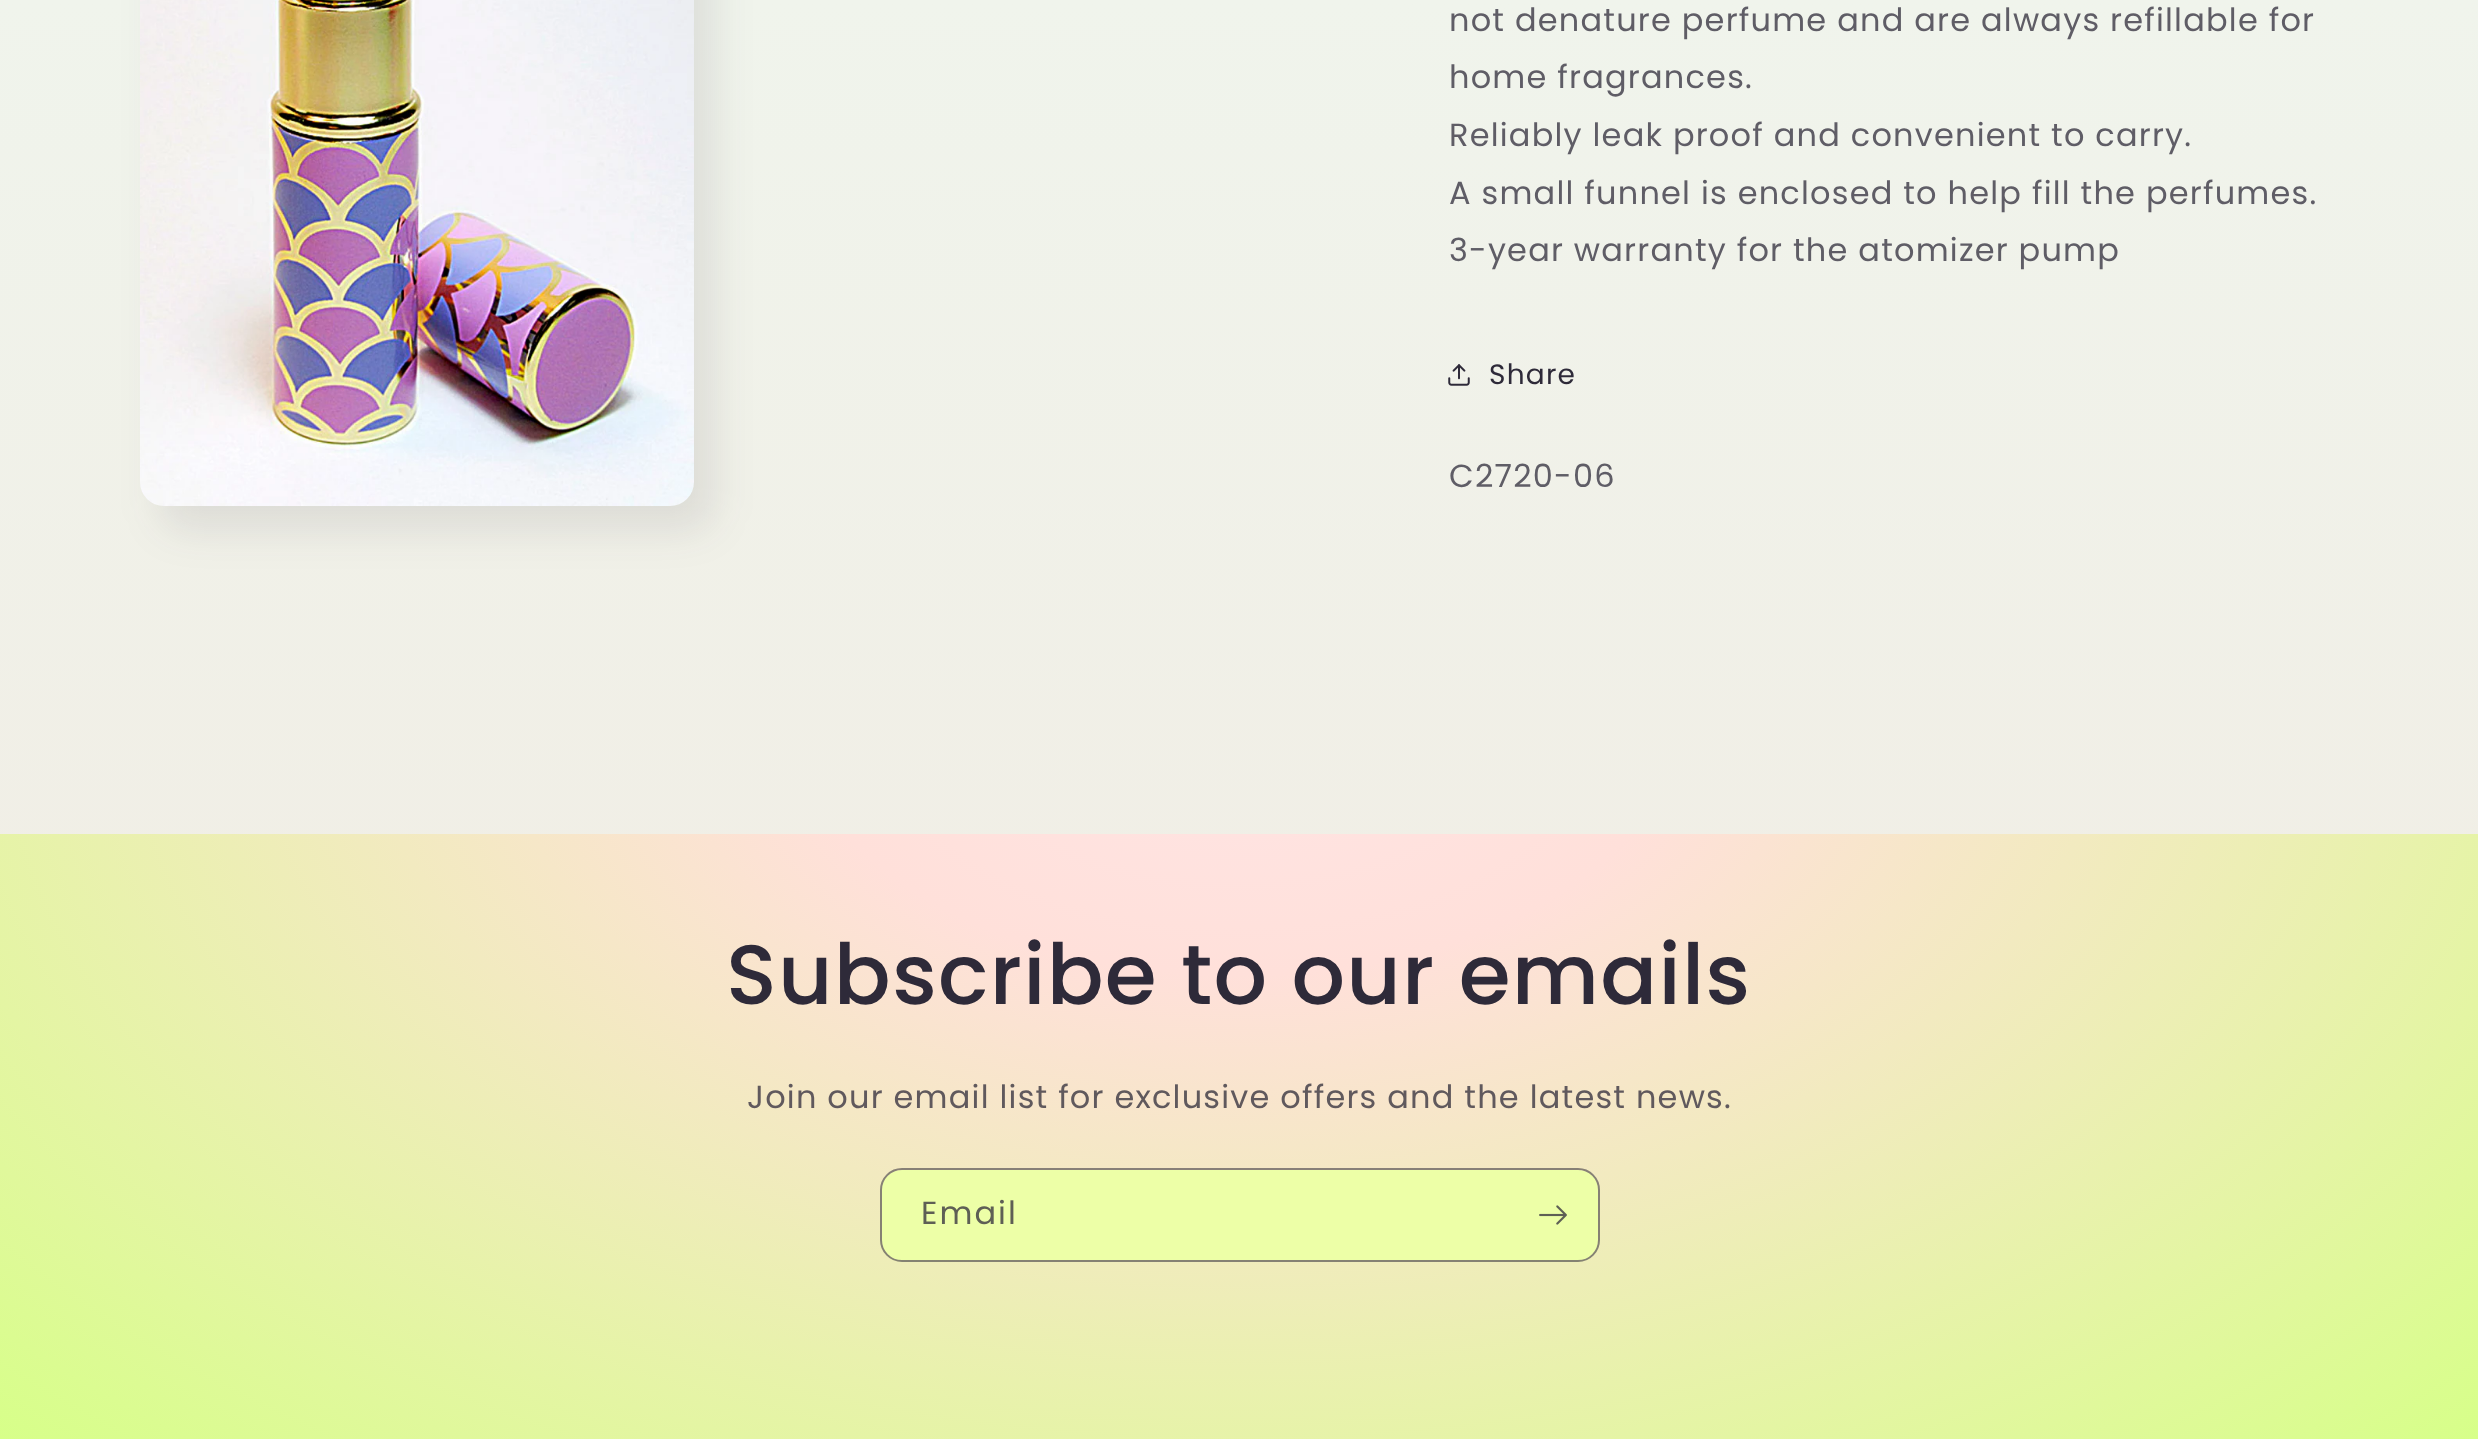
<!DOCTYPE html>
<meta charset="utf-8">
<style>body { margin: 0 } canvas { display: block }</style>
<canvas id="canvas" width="2478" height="1439"></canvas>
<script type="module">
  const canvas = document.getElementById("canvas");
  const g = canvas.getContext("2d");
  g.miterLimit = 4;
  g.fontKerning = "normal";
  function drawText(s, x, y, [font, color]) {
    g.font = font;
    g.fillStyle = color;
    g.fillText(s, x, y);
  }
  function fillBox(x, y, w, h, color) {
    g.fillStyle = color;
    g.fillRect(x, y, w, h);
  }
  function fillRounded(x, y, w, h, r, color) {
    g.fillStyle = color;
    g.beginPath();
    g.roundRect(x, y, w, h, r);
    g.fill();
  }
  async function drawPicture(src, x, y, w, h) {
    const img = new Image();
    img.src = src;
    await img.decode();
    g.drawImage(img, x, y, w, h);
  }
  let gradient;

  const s1 = ["32px Poppins", "#5F5D66"];
  const s2 = ["28px Poppins", "#2E2A39"];
  const s3 = ["500 84px Poppins", "#2E2A39"];
  const s4 = ["32px Poppins", "#60595D"];
  const s5 = ["32px Poppins", "#5E5F55"];

  fillBox(0, 0, 2478, 1439, "#FFFFFF");
  gradient = g.createLinearGradient(1239, 0, 1239, 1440);
  gradient.addColorStop(0, "#F0F4EC");
  gradient.addColorStop(1, "#F1EBE2");
  g.fillStyle = gradient;
  g.fillRect(0, 0, 2478, 834);
  g.fillStyle = "rgba(46, 42, 57, 0.1)";
  g.filter = "blur(20px)";
  g.beginPath();
  g.roundRect(160, -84, 554, 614, 24);
  g.fill();
  g.filter = "none";
  await drawPicture("pic1.png", 140, 0, 554, 506);
  g.letterSpacing = "1.2px";
  drawText("not denature perfume and are always refillable for", 1449, 31, s1);
  drawText("home fragrances.", 1449, 88, s1);
  drawText("Reliably leak proof and convenient to carry.", 1449, 146, s1);
  drawText("A small funnel is enclosed to help fill the perfumes.", 1449, 204, s1);
  drawText("3-year warranty for the atomizer pump", 1449, 261, s1);
  await drawPicture("pic2.png", 1448, 364, 22, 22);
  drawText("Share", 1489, 384, s2);
  drawText("C2720-06", 1449, 487, s1);
  gradient = g.createRadialGradient(1239, 1239.14, 0, 1239, 1239.14, 1752);
  gradient.addColorStop(0, "#FFE5E5");
  gradient.addColorStop(0.25, "#FFE0DA");
  gradient.addColorStop(1, "#D7FF89");
  g.fillStyle = gradient;
  g.beginPath();
  g.rect(0, 834, 2478, 444);
  g.save();
  g.clip();
  g.scale(1, 1018 / 1752);
  g.fillRect(0, 0, 2478, 2477);
  g.restore();
  g.letterSpacing = "1.25px";
  drawText("Subscribe to our emails", 726, 1004, s3);
  g.letterSpacing = "1.2px";
  drawText("Join our email list for exclusive offers and the latest news.", 747, 1108, s4);
  fillRounded(882, 1170, 716, 90, 20, "#EDFFA7");
  g.beginPath();
  g.roundRect(881, 1169, 718, 92, 21);
  g.strokeStyle = "rgba(46, 42, 57, 0.55)";
  g.lineWidth = 2;
  g.stroke();
  g.letterSpacing = "2px";
  drawText("Email", 921, 1224, s5);
  await drawPicture("pic3.png", 1539, 1205, 28, 20);
  gradient = g.createRadialGradient(1239, 1239.14, 0, 1239, 1239.14, 1752);
  gradient.addColorStop(0, "#FFE5E5");
  gradient.addColorStop(0.25, "#FFE0DA");
  gradient.addColorStop(1, "#D7FF89");
  g.fillStyle = gradient;
  g.beginPath();
  g.rect(0, 1278, 2478, 161);
  g.save();
  g.clip();
  g.scale(1, 1018 / 1752);
  g.fillRect(0, 0, 2478, 2477);
  g.restore();
</script>
